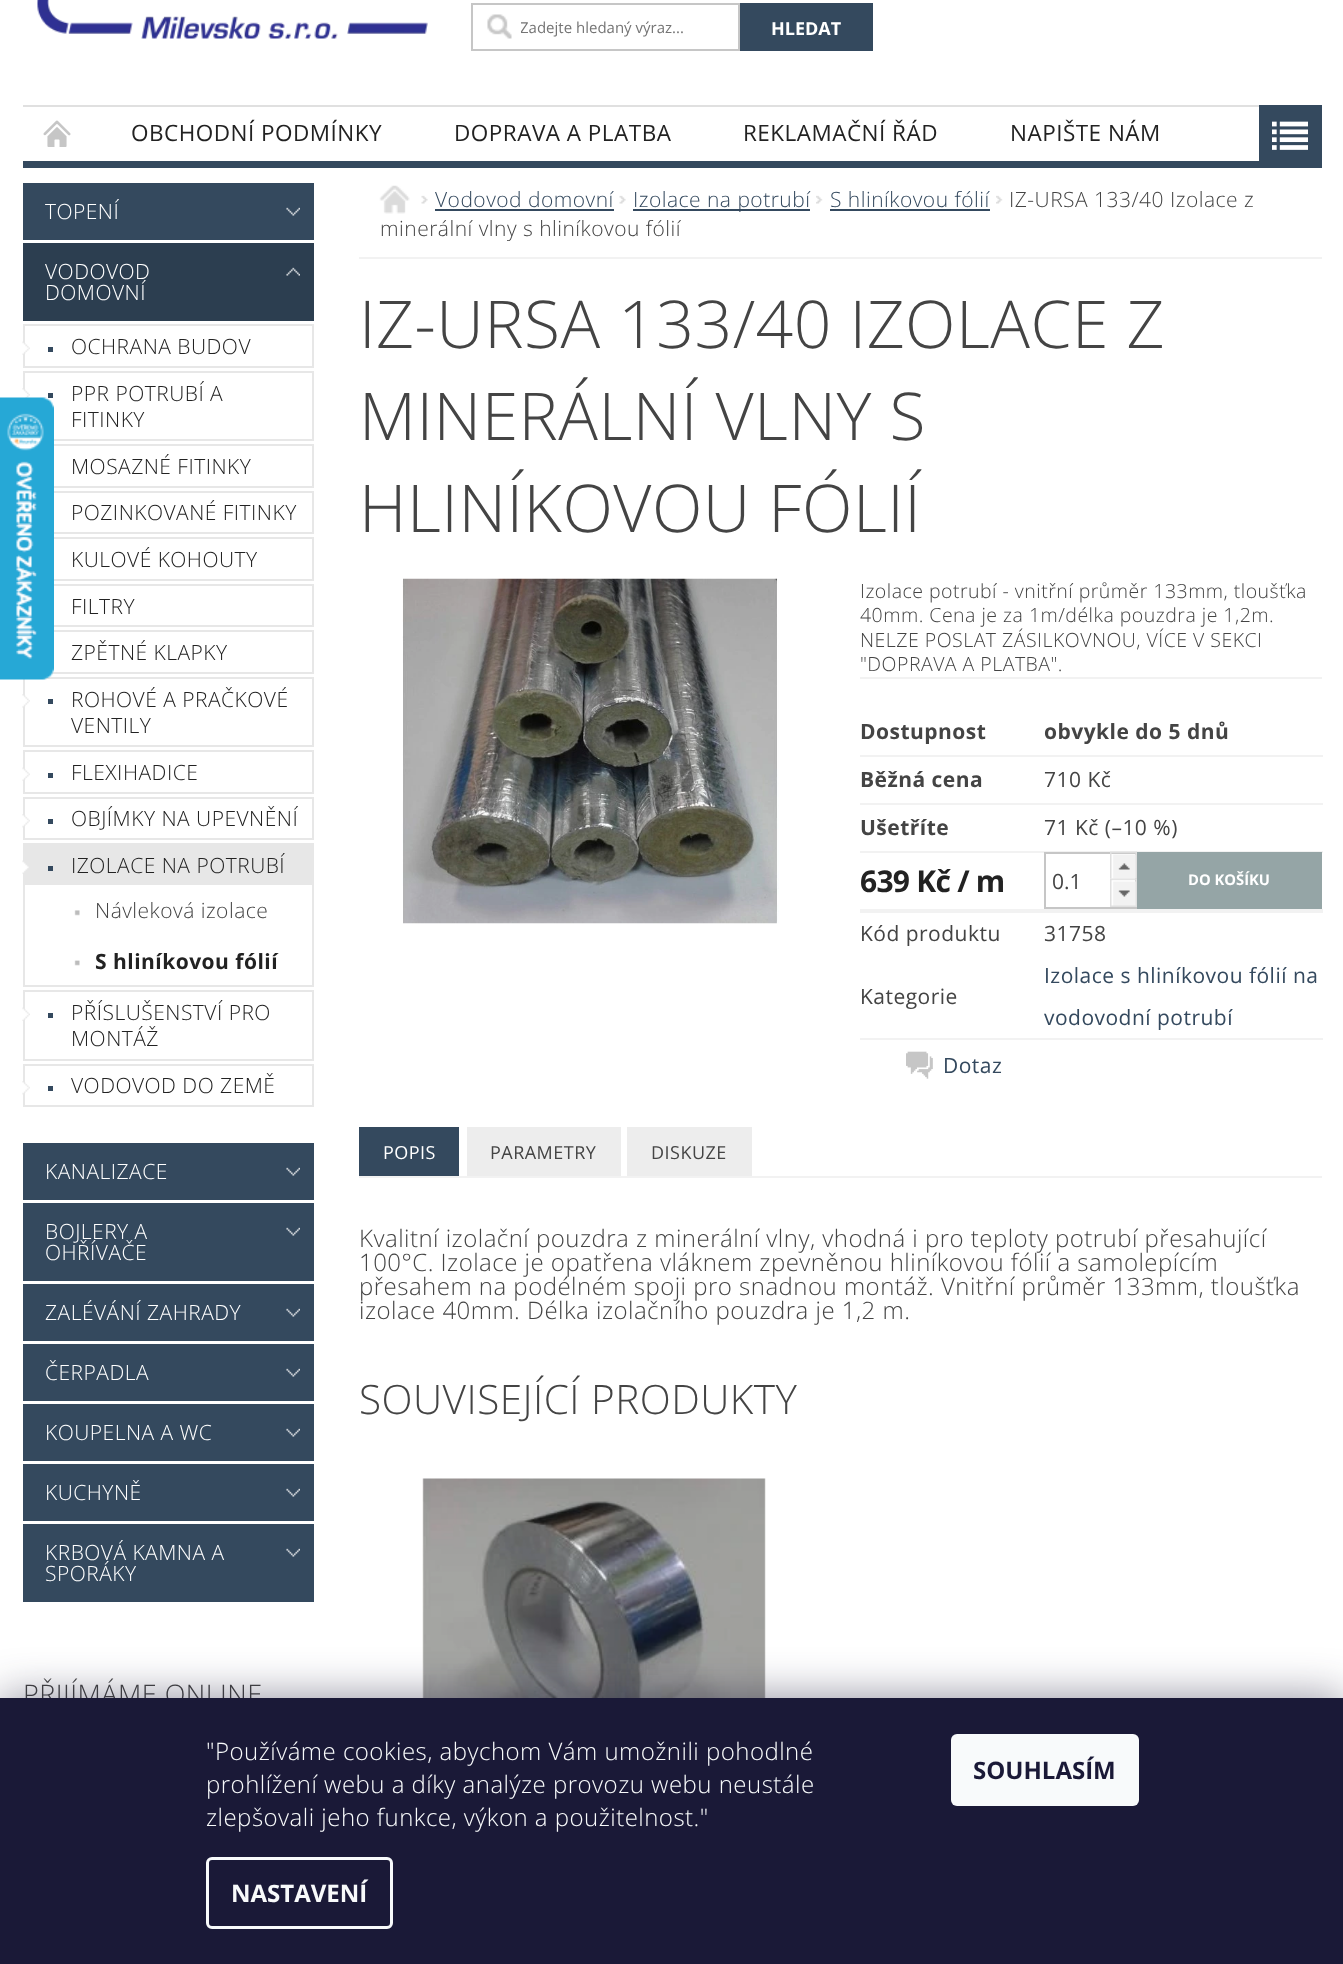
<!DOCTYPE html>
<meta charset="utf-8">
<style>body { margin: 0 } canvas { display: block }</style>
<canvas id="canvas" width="1343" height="1964"></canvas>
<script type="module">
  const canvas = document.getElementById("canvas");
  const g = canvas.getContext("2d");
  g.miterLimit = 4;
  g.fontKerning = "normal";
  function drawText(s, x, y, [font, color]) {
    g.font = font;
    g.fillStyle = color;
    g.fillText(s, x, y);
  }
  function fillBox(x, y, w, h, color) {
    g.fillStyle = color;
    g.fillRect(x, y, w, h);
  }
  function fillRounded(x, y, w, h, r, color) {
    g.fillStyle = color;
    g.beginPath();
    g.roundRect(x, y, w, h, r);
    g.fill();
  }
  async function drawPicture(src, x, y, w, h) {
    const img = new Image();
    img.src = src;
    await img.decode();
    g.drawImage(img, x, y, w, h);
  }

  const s1 = ["15px Open Sans", "#757575"];
  const s2 = ["bold 18px Open Sans", "#FFFFFF"];
  const s3 = ["22.5px Open Sans", "#222222"];
  const s4 = ["300 21px Open Sans", "#FFFFFF"];
  const s5 = ["300 21px Open Sans", "#222222"];
  const s6 = ["300 21px Open Sans", "#444444"];
  const s7 = ["bold 21px Open Sans", "#222222"];
  const s8 = ["300 27px Open Sans", "#444444"];
  const s9 = ["300 21px Open Sans", "#34495E"];
  const s10 = ["300 66px Open Sans", "#444444"];
  const s11 = ["300 19.5px Open Sans", "#444444"];
  const s12 = ["bold 21px Open Sans", "#444444"];
  const s13 = ["21px Open Sans", "#444444"];
  const s14 = ["bold 30px Open Sans", "#222222"];
  const s15 = ["bold 14.75px Open Sans", "#FFFFFF"];
  const s16 = ["21px Open Sans", "#34495E"];
  const s17 = ["18px Open Sans", "#FFFFFF"];
  const s18 = ["18px Open Sans", "#444444"];
  const s19 = ["300 24px Open Sans", "#444444"];
  const s20 = ["300 40.5px Open Sans", "#444444"];
  const s21 = ["300 24px Open Sans", "#F8FAFB"];
  const s22 = ["bold 24px Open Sans", "#F8FAFB"];
  const s23 = ["bold 24px Open Sans", "#1A1937"];

  fillBox(0, 0, 1343, 1964, "#FFFFFF");
  fillBox(23, 161, 1236, 7, "#34495E");
  await drawPicture("pic1.png", 37, 0, 391, 39);
  await drawPicture("pic2.png", 487, 14, 25, 25);
  g.strokeStyle = "#C6C6C6";
  g.lineWidth = 2;
  g.strokeRect(472, 4, 267, 46);
  g.save();
  g.beginPath();
  g.rect(521, 17, 199, 21);
  g.clip();
  drawText("Zadejte hledaný výraz...", 520, 33, s1);
  g.restore();
  fillBox(740, 3, 133, 48, "#34495E");
  drawText("HLEDAT", 771, 35, s2);
  fillBox(23, 105, 1236, 2, "#E0E0E0");
  await drawPicture("pic3.png", 43, 120, 28, 27);
  g.letterSpacing = "0.48px";
  drawText("OBCHODNÍ PODMÍNKY", 131, 141, s3);
  drawText("DOPRAVA A PLATBA", 454, 141, s3);
  drawText("REKLAMAČNÍ ŘÁD", 743, 141, s3);
  drawText("NAPIŠTE NÁM", 1010, 141, s3);
  fillBox(1259, 105, 63, 63, "#34495E");
  await drawPicture("pic4.png", 1272, 121, 36, 29);
  fillBox(23, 183, 291, 57, "#34495E");
  await drawPicture("pic5.png", 286, 207, 14, 9);
  drawText("TOPENÍ", 45, 219, s4);
  fillBox(23, 243, 291, 78, "#2C3E50");
  await drawPicture("pic6.png", 286, 267, 14, 9);
  drawText("VODOVOD", 45, 279, s4);
  drawText("DOMOVNÍ", 45, 300, s4);
  g.strokeStyle = "#E7E7E7";
  g.strokeRect(24, 325, 289, 42);
  await drawPicture("pic7.png", 22, 341, 8, 14);
  fillBox(48, 347, 5, 5, "#34495E");
  drawText("OCHRANA BUDOV", 71, 354, s5);
  g.strokeRect(24, 372, 289, 68);
  await drawPicture("pic8.png", 22, 388, 8, 10);
  fillBox(48, 393, 5, 5, "#34495E");
  drawText("PPR POTRUBÍ A", 71, 401, s5);
  drawText("FITINKY", 71, 427, s5);
  g.strokeRect(24, 445, 289, 42);
  drawText("MOSAZNÉ FITINKY", 71, 474, s5);
  g.strokeRect(24, 492, 289, 41);
  drawText("POZINKOVANÉ FITINKY", 71, 520, s5);
  g.strokeRect(24, 538, 289, 42);
  drawText("KULOVÉ KOHOUTY", 71, 567, s5);
  g.strokeRect(24, 585, 289, 41);
  drawText("FILTRY", 71, 614, s5);
  g.strokeRect(24, 631, 289, 42);
  drawText("ZPĚTNÉ KLAPKY", 71, 660, s5);
  g.strokeRect(24, 678, 289, 68);
  await drawPicture("pic9.png", 22, 694, 8, 14);
  fillBox(48, 699, 5, 5, "#34495E");
  drawText("ROHOVÉ A PRAČKOVÉ", 71, 707, s5);
  drawText("VENTILY", 71, 733, s5);
  g.strokeRect(24, 751, 289, 42);
  await drawPicture("pic7.png", 22, 767, 8, 14);
  fillBox(48, 773, 5, 5, "#34495E");
  drawText("FLEXIHADICE", 71, 780, s5);
  g.strokeRect(24, 798, 289, 41);
  await drawPicture("pic10.png", 22, 814, 8, 14);
  fillBox(48, 819, 5, 5, "#34495E");
  drawText("OBJÍMKY NA UPEVNĚNÍ", 71, 826, s5);
  g.strokeRect(24, 844, 289, 142);
  fillBox(25, 845, 287, 40, "#E7E7E7");
  await drawPicture("pic11.png", 22, 860, 7, 14);
  fillBox(48, 866, 5, 5, "#34495E");
  drawText("IZOLACE NA POTRUBÍ", 71, 873, s5);
  await drawPicture("pic12.png", 74, 910, 6, 6);
  drawText("Návleková izolace", 95, 918, s6);
  await drawPicture("pic13.png", 74, 960, 6, 6);
  drawText("S hliníkovou fólií", 95, 969, s7);
  g.strokeRect(24, 991, 289, 69);
  await drawPicture("pic14.png", 22, 1007, 8, 14);
  fillBox(48, 1013, 5, 5, "#34495E");
  drawText("PŘÍSLUŠENSTVÍ PRO", 71, 1020, s5);
  drawText("MONTÁŽ", 71, 1046, s5);
  g.strokeRect(24, 1065, 289, 41);
  await drawPicture("pic10.png", 22, 1081, 8, 14);
  fillBox(48, 1086, 5, 5, "#34495E");
  drawText("VODOVOD DO ZEMĚ", 71, 1093, s5);
  fillBox(23, 1143, 291, 57, "#34495E");
  await drawPicture("pic5.png", 286, 1167, 14, 9);
  drawText("KANALIZACE", 45, 1179, s4);
  fillBox(23, 1203, 291, 78, "#34495E");
  await drawPicture("pic5.png", 286, 1227, 14, 9);
  drawText("BOJLERY A", 45, 1239, s4);
  drawText("OHŘÍVAČE", 45, 1260, s4);
  fillBox(23, 1284, 291, 57, "#34495E");
  await drawPicture("pic5.png", 286, 1308, 14, 9);
  drawText("ZALÉVÁNÍ ZAHRADY", 45, 1320, s4);
  fillBox(23, 1344, 291, 57, "#34495E");
  await drawPicture("pic5.png", 286, 1368, 14, 9);
  drawText("ČERPADLA", 45, 1380, s4);
  fillBox(23, 1404, 291, 57, "#34495E");
  await drawPicture("pic5.png", 286, 1428, 14, 9);
  drawText("KOUPELNA A WC", 45, 1440, s4);
  fillBox(23, 1464, 291, 57, "#34495E");
  await drawPicture("pic5.png", 286, 1488, 14, 9);
  drawText("KUCHYNĚ", 45, 1500, s4);
  fillBox(23, 1524, 291, 78, "#34495E");
  await drawPicture("pic5.png", 286, 1548, 14, 9);
  drawText("KRBOVÁ KAMNA A", 45, 1560, s4);
  drawText("SPORÁKY", 45, 1581, s4);
  drawText("PŘIJÍMÁME ONLINE", 23, 1704, s8);
  fillBox(359, 257, 963, 2, "#F2F2F2");
  await drawPicture("pic15.png", 379, 185, 31, 29);
  await drawPicture("pic16.png", 421, 195, 7, 9);
  drawText("Vodovod domovní", 435, 207, s9);
  fillBox(435, 209, 179, 2, "#34495E");
  await drawPicture("pic16.png", 619, 195, 7, 9);
  fillBox(633, 209, 177, 2, "#34495E");
  drawText("Izolace na potrubí", 633, 207, s9);
  await drawPicture("pic17.png", 816, 195, 7, 9);
  drawText("S hliníkovou fólií", 830, 207, s9);
  fillBox(830, 209, 160, 2, "#34495E");
  await drawPicture("pic17.png", 996, 195, 7, 9);
  drawText("IZ-URSA 133/40 Izolace z", 1009, 207, s6);
  drawText("minerální vlny s hliníkovou fólií", 380, 236, s6);
  drawText("IZ-URSA 133/40 IZOLACE Z", 359, 348, s10);
  drawText("MINERÁLNÍ VLNY S", 359, 440, s10);
  drawText("HLINÍKOVOU FÓLIÍ", 359, 532, s10);
  await drawPicture("pic18.png", 402, 578, 377, 346);
  fillBox(860, 677, 462, 2, "#F2F2F2");
  drawText("Izolace potrubí - vnitřní průměr 133mm, tloušťka", 860, 598, s11);
  drawText("40mm. Cena je za 1m/délka pouzdra je 1,2m.", 860, 622, s11);
  drawText("NELZE POSLAT ZÁSILKOVNOU, VÍCE V SEKCI", 860, 647, s11);
  drawText("\"DOPRAVA A PLATBA\".", 860, 671, s11);
  fillBox(860, 755, 463, 2, "#F2F2F2");
  drawText("Dostupnost", 860, 739, s12);
  drawText("obvykle do 5 dnů", 1044, 739, s12);
  fillBox(860, 803, 463, 2, "#F2F2F2");
  drawText("Běžná cena", 860, 787, s12);
  drawText("710 Kč", 1044, 787, s13);
  fillBox(860, 851, 463, 2, "#F2F2F2");
  drawText("Ušetříte", 860, 835, s12);
  drawText("71 Kč (–10 %)", 1044, 835, s13);
  fillBox(860, 909, 463, 4, "#F2F2F2");
  g.letterSpacing = "-0.75px";
  drawText("639 Kč / m", 860, 892, s14);
  g.strokeStyle = "#C6C6C6";
  g.strokeRect(1045, 853, 91, 55);
  await drawPicture("pic19.png", 1110, 851, 27, 28);
  g.letterSpacing = "0px";
  drawText("0.1", 1052, 889, s13);
  await drawPicture("pic20.png", 1110, 878, 27, 29);
  fillBox(1137, 852, 185, 57, "#95A5A6");
  drawText("DO KOŠÍKU", 1188, 885, s15);
  g.letterSpacing = "0.48px";
  drawText("Kód produktu", 860, 941, s13);
  drawText("31758", 1044, 941, s13);
  fillBox(860, 1038, 463, 2, "#F2F2F2");
  drawText("Kategorie", 860, 1004, s13);
  drawText("Izolace s hliníkovou fólií na", 1044, 983, s16);
  drawText("vodovodní potrubí", 1044, 1025, s16);
  await drawPicture("pic21.png", 906, 1051, 27, 28);
  drawText("Dotaz", 943, 1073, s16);
  fillBox(359, 1176, 963, 2, "#F2F2F2");
  fillBox(359, 1127, 100, 49, "#34495E");
  drawText("POPIS", 383, 1159, s17);
  fillBox(467, 1127, 154, 49, "#EDEDED");
  drawText("PARAMETRY", 490, 1159, s18);
  fillBox(627, 1127, 125, 49, "#EDEDED");
  drawText("DISKUZE", 651, 1159, s18);
  drawText("Kvalitní izolační pouzdra z minerální vlny, vhodná i pro teploty potrubí přesahující", 359, 1247, s19);
  drawText("100°C. Izolace je opatřena vláknem zpevněnou hliníkovou fólií a samolepícím", 359, 1271, s19);
  drawText("přesahem na podélném spoji pro snadnou montáž. Vnitřní průměr 133mm, tloušťka", 359, 1295, s19);
  drawText("izolace 40mm. Délka izolačního pouzdra je 1,2 m.", 359, 1319, s19);
  drawText("SOUVISEJÍCÍ PRODUKTY", 359, 1414, s20);
  await drawPicture("pic22.png", 422, 1478, 344, 220);
  await drawPicture("pic23.png", 0, 397, 54, 283);
  g.fillStyle = "rgba(27, 25, 57, 0.5)";
  g.filter = "blur(22.5px)";
  g.beginPath();
  g.rect(0, 1698, 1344, 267);
  g.fill();
  g.filter = "none";
  fillBox(0, 1698, 1343, 266, "#1A1937");
  drawText("\"Používáme cookies, abychom Vám umožnili pohodlné", 206, 1760, s21);
  drawText("prohlížení webu a díky analýze provozu webu neustále", 206, 1793, s21);
  drawText("zlepšovali jeho funkce, výkon a použitelnost.\"", 206, 1826, s21);
  g.beginPath();
  g.roundRect(207.5, 1858.5, 184, 69, 4.5);
  g.strokeStyle = "#F8FAFB";
  g.lineWidth = 3;
  g.stroke();
  g.letterSpacing = "0px";
  drawText("NASTAVENÍ", 231, 1902, s22);
  fillRounded(951, 1734, 188, 72, 6, "#F8FAFB");
  drawText("SOUHLASÍM", 973, 1779, s23);
</script>
